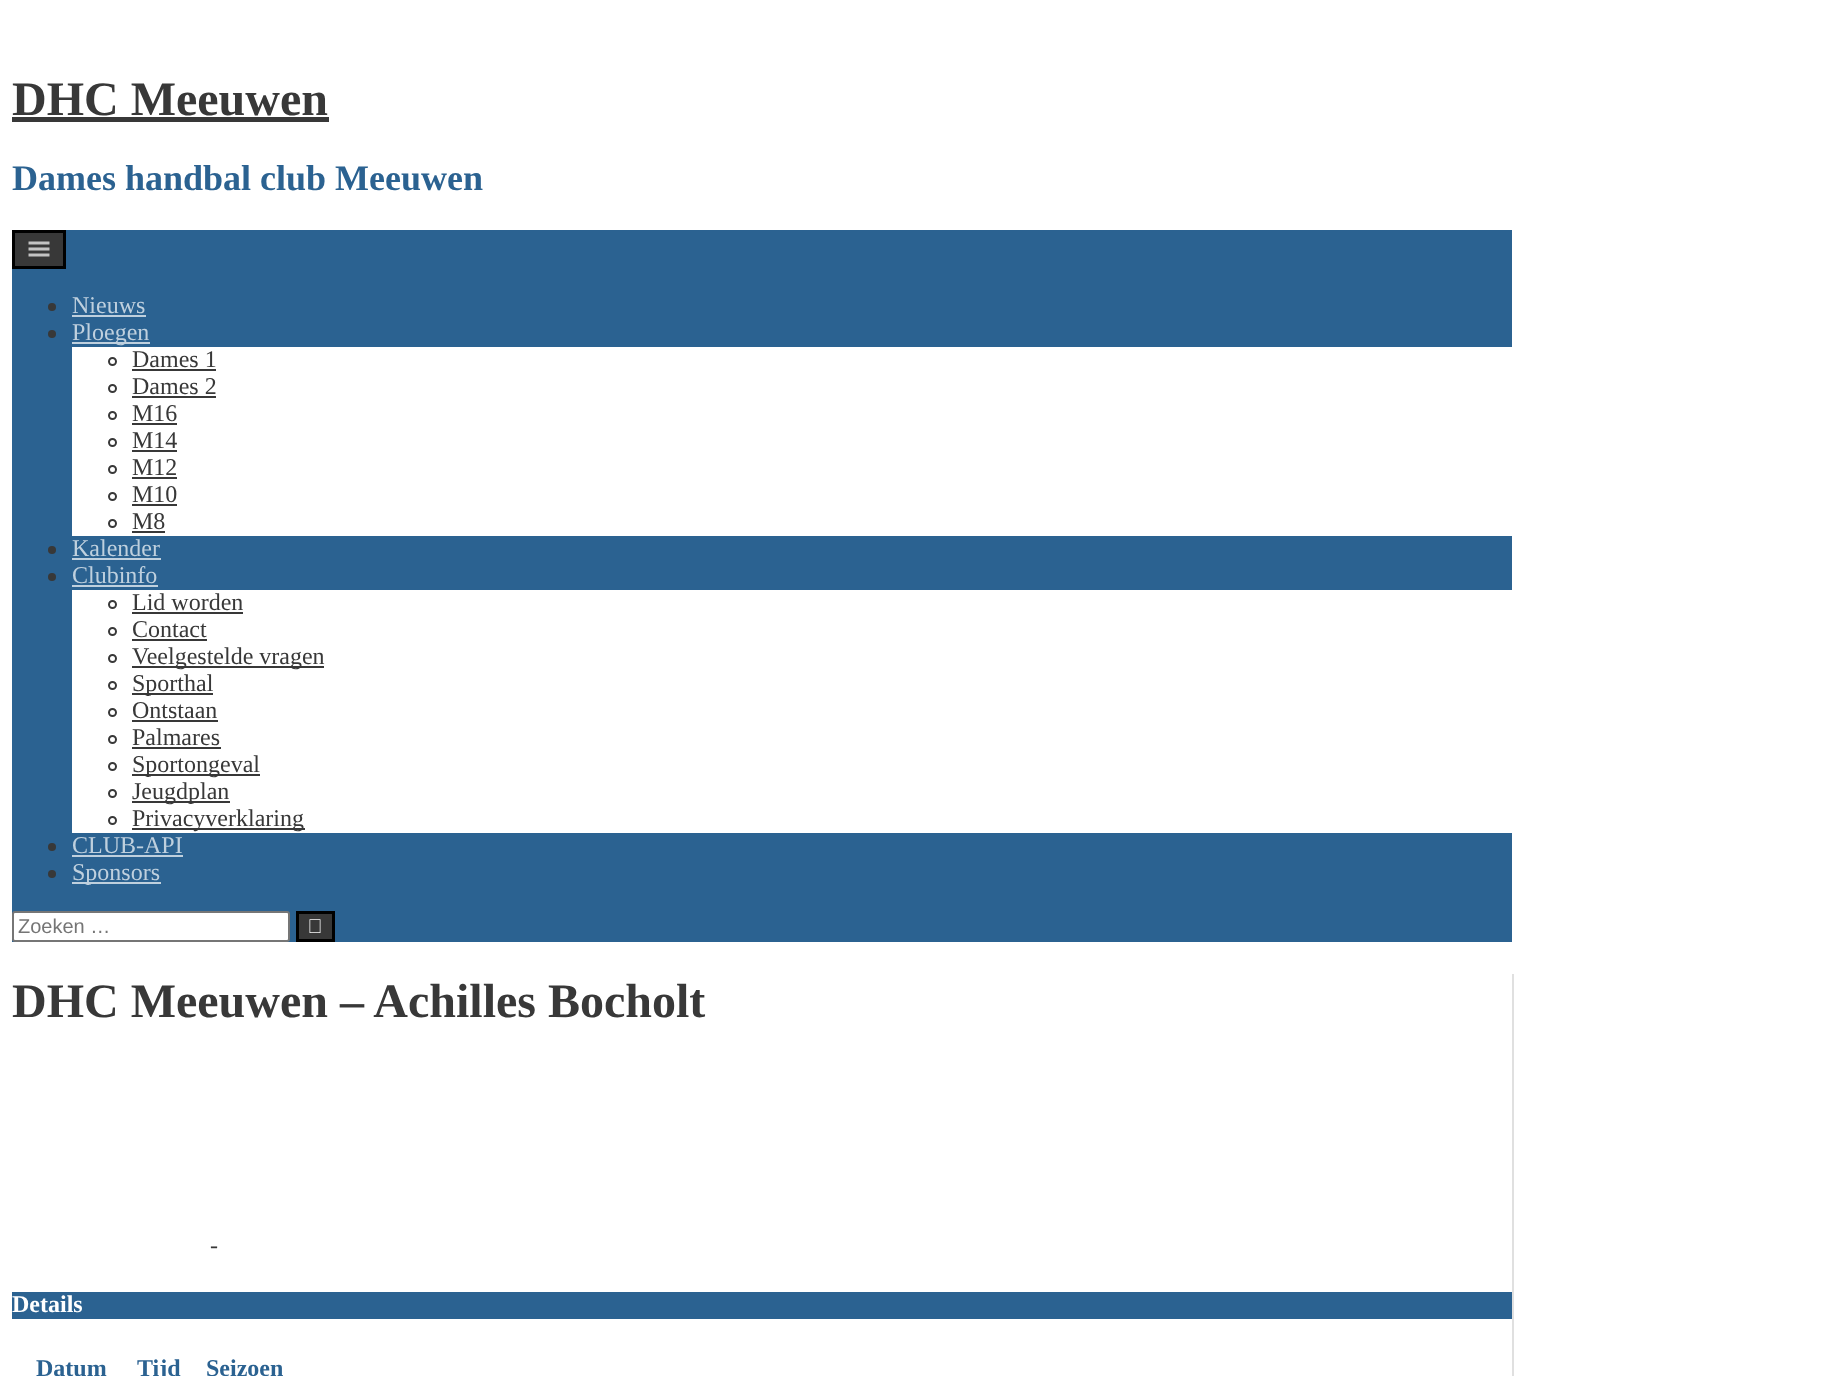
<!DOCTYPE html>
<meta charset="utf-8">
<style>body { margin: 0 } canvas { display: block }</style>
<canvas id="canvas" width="1848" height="1376"></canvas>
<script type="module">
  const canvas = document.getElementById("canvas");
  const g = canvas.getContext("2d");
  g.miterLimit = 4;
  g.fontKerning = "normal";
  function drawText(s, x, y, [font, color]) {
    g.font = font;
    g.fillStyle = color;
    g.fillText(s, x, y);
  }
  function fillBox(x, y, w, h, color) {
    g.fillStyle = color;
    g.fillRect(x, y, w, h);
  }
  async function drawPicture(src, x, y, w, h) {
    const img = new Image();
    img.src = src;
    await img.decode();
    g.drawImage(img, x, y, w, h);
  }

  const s1 = ["bold 48px Liberation Serif", "#383838"];
  const s2 = ["bold 36px Liberation Serif", "#2B6291"];
  const s3 = ["24px Liberation Serif", "#BFD0DE"];
  const s4 = ["24px Liberation Serif", "#383838"];
  const s5 = ["20px Liberation Sans", "#757575"];
  const s6 = ["bold 24px Liberation Serif", "#FFFFFF"];
  const s7 = ["bold 24px Liberation Serif", "#2B6291"];

  fillBox(0, 0, 1848, 1376, "#FFFFFF");
  drawText("DHC Meeuwen", 12, 115, s1);
  fillBox(12, 117, 317, 5, "#383838");
  drawText("Dames handbal club Meeuwen", 12, 190, s2);
  fillBox(12, 230, 1500, 712, "#2B6291");
  g.fillStyle = "#383838";
  g.beginPath();
  g.rect(13.5, 231.5, 51, 36);
  g.fill();
  g.strokeStyle = "#000000";
  g.lineWidth = 3;
  g.stroke();
  await drawPicture("pic1.png", 28, 241, 22, 16);
  g.beginPath();
  g.arc(52, 307, 4, 0, Math.PI * 2);
  g.fill();
  drawText("Nieuws", 72, 313, s3);
  fillBox(72, 315, 74, 2, "#BFD0DE");
  g.fillStyle = "#383838";
  g.beginPath();
  g.arc(52, 334, 4, 0, Math.PI * 2);
  g.fill();
  fillBox(72, 342, 78, 2, "#BFD0DE");
  drawText("Ploegen", 72, 340, s3);
  fillBox(72, 347, 1440, 189, "#FFFFFF");
  g.beginPath();
  g.arc(112.5, 361.5, 3.5, 0, Math.PI * 2);
  g.strokeStyle = "#383838";
  g.lineWidth = 2;
  g.stroke();
  drawText("Dames 1", 132, 367, s4);
  fillBox(132, 369, 84, 2, "#383838");
  g.beginPath();
  g.arc(112.5, 388.5, 3.5, 0, Math.PI * 2);
  g.stroke();
  drawText("Dames 2", 132, 394, s4);
  fillBox(132, 396, 84, 2, "#383838");
  g.beginPath();
  g.arc(112.5, 415.5, 3.5, 0, Math.PI * 2);
  g.stroke();
  drawText("M16", 132, 421, s4);
  fillBox(132, 423, 45, 2, "#383838");
  g.beginPath();
  g.arc(112.5, 442.5, 3.5, 0, Math.PI * 2);
  g.stroke();
  drawText("M14", 132, 448, s4);
  fillBox(132, 450, 45, 2, "#383838");
  g.beginPath();
  g.arc(112.5, 469.5, 3.5, 0, Math.PI * 2);
  g.stroke();
  drawText("M12", 132, 475, s4);
  fillBox(132, 477, 45, 2, "#383838");
  g.beginPath();
  g.arc(112.5, 496.5, 3.5, 0, Math.PI * 2);
  g.stroke();
  drawText("M10", 132, 502, s4);
  fillBox(132, 504, 45, 2, "#383838");
  g.beginPath();
  g.arc(112.5, 523.5, 3.5, 0, Math.PI * 2);
  g.stroke();
  drawText("M8", 132, 529, s4);
  fillBox(132, 531, 33, 2, "#383838");
  g.beginPath();
  g.arc(52, 550, 4, 0, Math.PI * 2);
  g.fill();
  drawText("Kalender", 72, 556, s3);
  fillBox(72, 558, 89, 2, "#BFD0DE");
  g.fillStyle = "#383838";
  g.beginPath();
  g.arc(52, 577, 4, 0, Math.PI * 2);
  g.fill();
  drawText("Clubinfo", 72, 583, s3);
  fillBox(72, 585, 86, 2, "#BFD0DE");
  fillBox(72, 590, 1440, 243, "#FFFFFF");
  g.beginPath();
  g.arc(112.5, 604.5, 3.5, 0, Math.PI * 2);
  g.stroke();
  drawText("Lid worden", 132, 610, s4);
  fillBox(132, 612, 111, 2, "#383838");
  g.beginPath();
  g.arc(112.5, 631.5, 3.5, 0, Math.PI * 2);
  g.stroke();
  drawText("Contact", 132, 637, s4);
  fillBox(132, 639, 75, 2, "#383838");
  g.beginPath();
  g.arc(112.5, 658.5, 3.5, 0, Math.PI * 2);
  g.stroke();
  fillBox(132, 666, 192, 2, "#383838");
  drawText("Veelgestelde vragen", 132, 664, s4);
  g.beginPath();
  g.arc(112.5, 685.5, 3.5, 0, Math.PI * 2);
  g.stroke();
  fillBox(132, 693, 81, 2, "#383838");
  drawText("Sporthal", 132, 691, s4);
  g.beginPath();
  g.arc(112.5, 712.5, 3.5, 0, Math.PI * 2);
  g.stroke();
  drawText("Ontstaan", 132, 718, s4);
  fillBox(132, 720, 86, 2, "#383838");
  g.beginPath();
  g.arc(112.5, 739.5, 3.5, 0, Math.PI * 2);
  g.stroke();
  drawText("Palmares", 132, 745, s4);
  fillBox(132, 747, 89, 2, "#383838");
  g.beginPath();
  g.arc(112.5, 766.5, 3.5, 0, Math.PI * 2);
  g.stroke();
  fillBox(132, 774, 128, 2, "#383838");
  drawText("Sportongeval", 132, 772, s4);
  g.beginPath();
  g.arc(112.5, 793.5, 3.5, 0, Math.PI * 2);
  g.stroke();
  fillBox(132, 801, 98, 2, "#383838");
  drawText("Jeugdplan", 132, 799, s4);
  g.beginPath();
  g.arc(112.5, 820.5, 3.5, 0, Math.PI * 2);
  g.stroke();
  fillBox(132, 828, 173, 2, "#383838");
  drawText("Privacyverklaring", 132, 826, s4);
  g.beginPath();
  g.arc(52, 847, 4, 0, Math.PI * 2);
  g.fill();
  drawText("CLUB-API", 72, 853, s3);
  fillBox(72, 855, 111, 2, "#BFD0DE");
  g.fillStyle = "#383838";
  g.beginPath();
  g.arc(52, 874, 4, 0, Math.PI * 2);
  g.fill();
  fillBox(72, 882, 89, 2, "#BFD0DE");
  drawText("Sponsors", 72, 880, s3);
  g.fillStyle = "#FFFFFF";
  g.beginPath();
  g.roundRect(13, 912, 276, 29, 2);
  g.fill();
  g.strokeStyle = "#767676";
  g.stroke();
  drawText("Zoeken …", 18, 933, s5);
  g.fillStyle = "#383838";
  g.beginPath();
  g.rect(297.5, 912.5, 36, 28);
  g.fill();
  g.strokeStyle = "#000000";
  g.lineWidth = 3;
  g.stroke();
  await drawPicture("pic2.png", 309, 919, 12, 14);
  g.fillStyle = "#E0E0E0";
  g.beginPath();
  g.moveTo(14, 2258);
  g.lineTo(1514, 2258);
  g.lineTo(1514, 974);
  g.lineTo(1512, 974);
  g.lineTo(1512, 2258);
  g.closePath();
  g.fill();
  drawText("DHC Meeuwen – Achilles Bocholt", 12, 1017, s1);
  drawText("-", 210, 1253, s4);
  fillBox(12, 1292, 1500, 27, "#2B6291");
  drawText("Details", 12, 1312, s6);
  drawText("Datum", 36, 1376, s7);
  drawText("Tijd", 137, 1376, s7);
  drawText("Seizoen", 206, 1376, s7);
</script>
